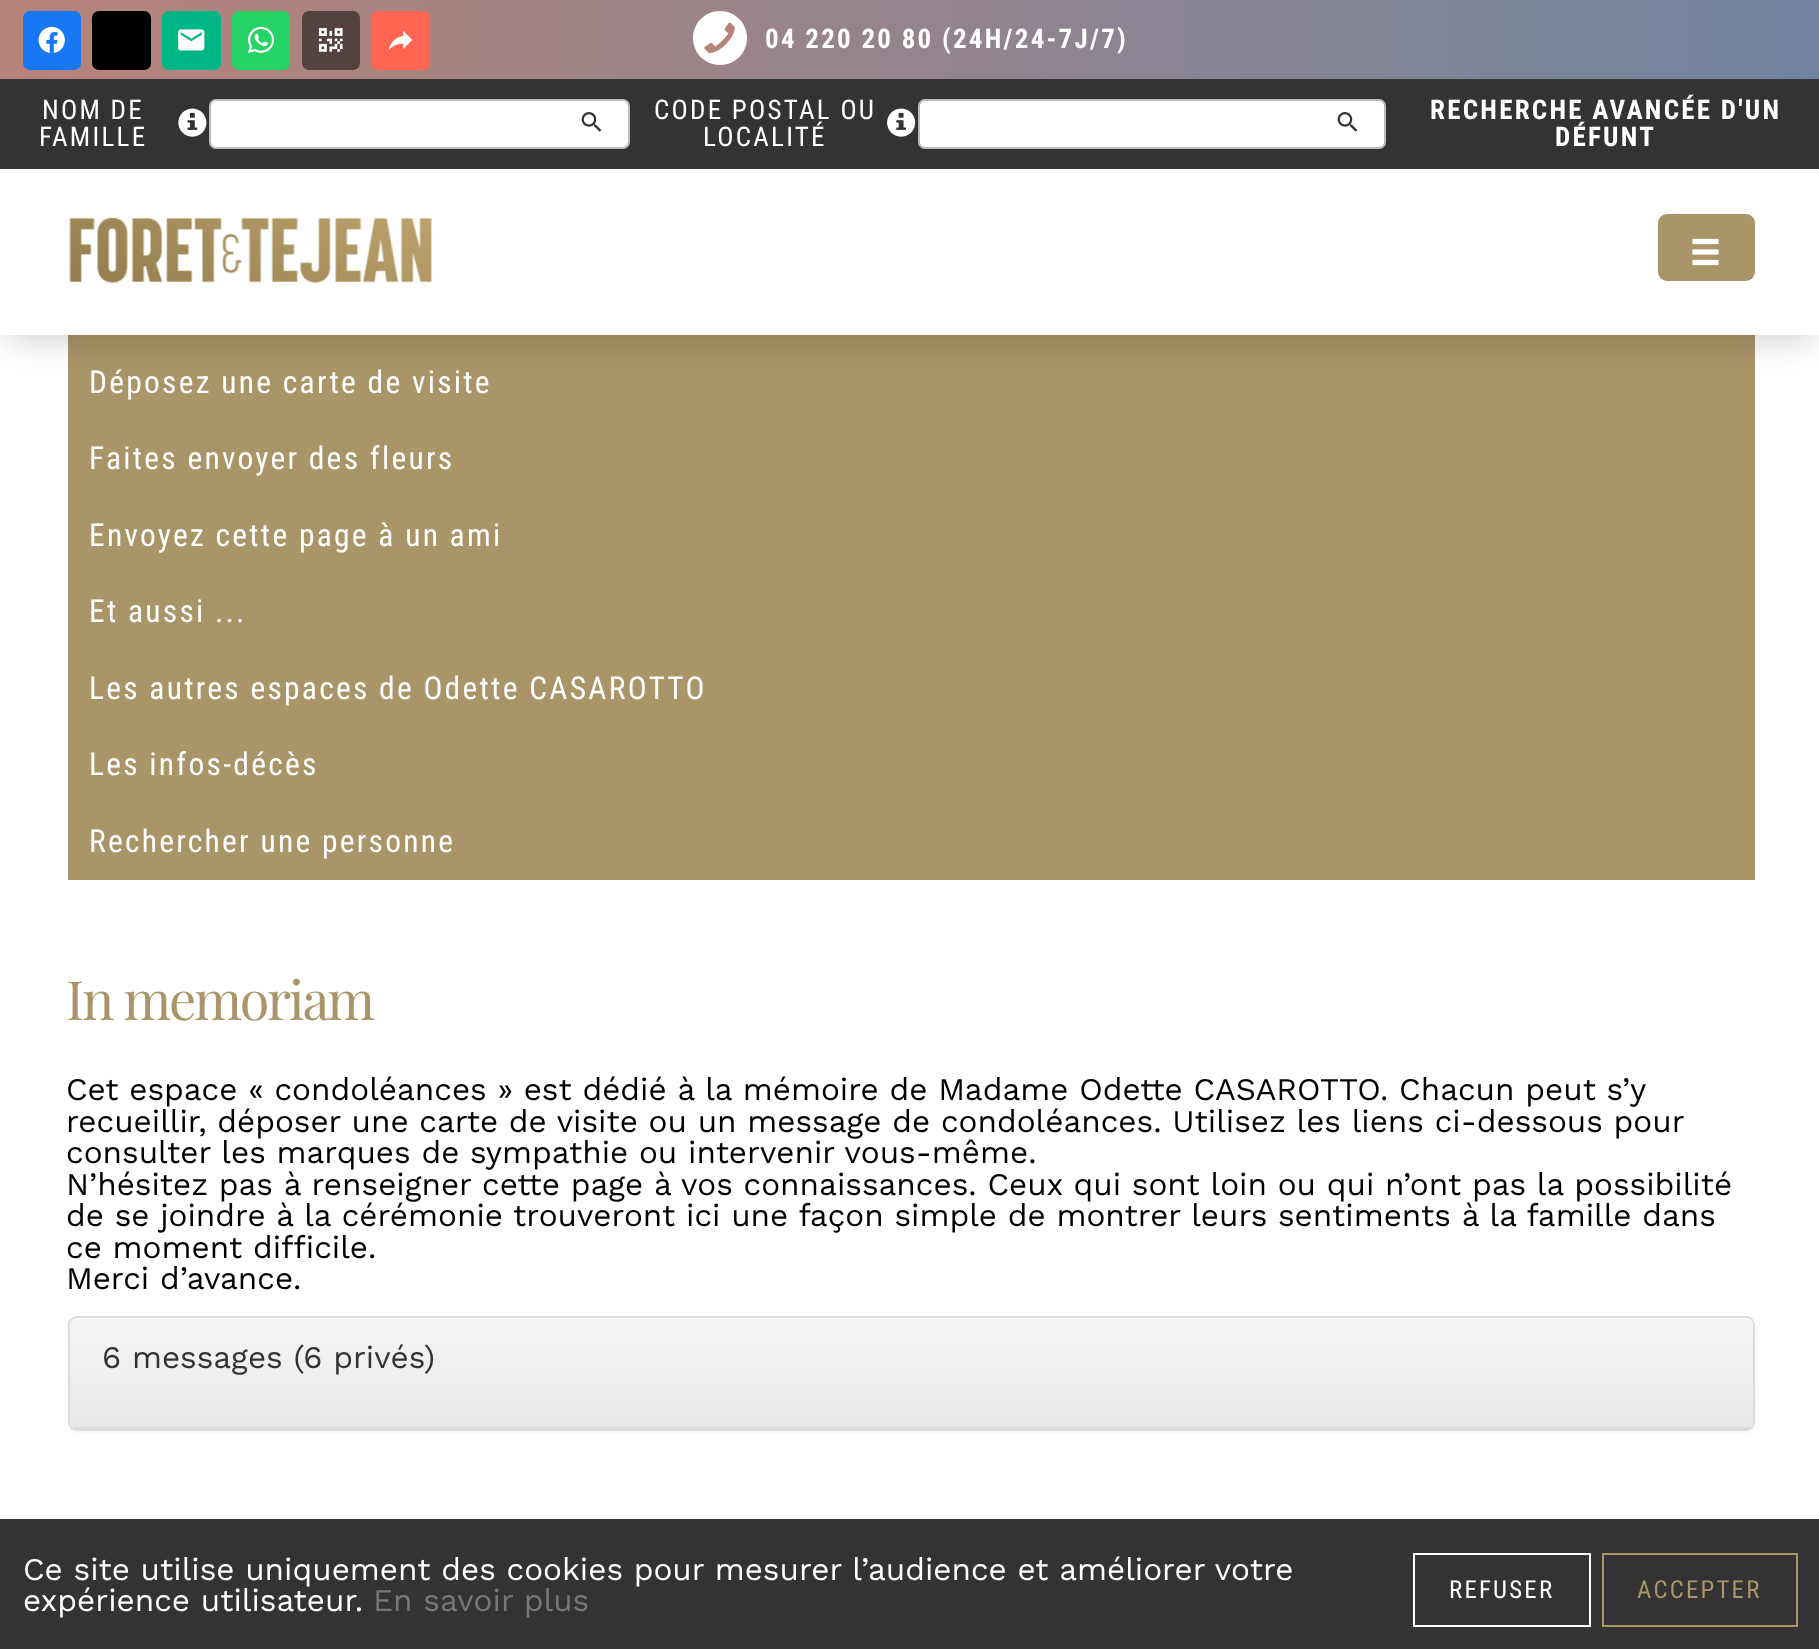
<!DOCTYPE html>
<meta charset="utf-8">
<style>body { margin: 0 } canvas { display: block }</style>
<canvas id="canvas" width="1819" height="1649"></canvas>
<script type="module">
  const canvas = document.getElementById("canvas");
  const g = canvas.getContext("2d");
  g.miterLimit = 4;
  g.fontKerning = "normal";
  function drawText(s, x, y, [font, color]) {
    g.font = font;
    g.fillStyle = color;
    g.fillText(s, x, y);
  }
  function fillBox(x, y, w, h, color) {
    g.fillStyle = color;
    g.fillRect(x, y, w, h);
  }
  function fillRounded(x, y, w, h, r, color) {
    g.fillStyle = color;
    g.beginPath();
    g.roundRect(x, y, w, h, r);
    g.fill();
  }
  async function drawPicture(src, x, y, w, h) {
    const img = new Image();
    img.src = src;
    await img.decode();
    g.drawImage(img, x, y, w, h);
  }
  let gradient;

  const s1 = ["bold 27px Roboto Condensed", "#FFFFFF"];
  const s2 = ["27px Roboto Condensed", "#FFFFFF"];
  const s3 = ["31.5px Roboto Condensed", "#FFFFFF"];
  const s4 = ["54px Playfair Display", "#AA9568"];
  const s5 = ["31.5px Work Sans", "#000000"];
  const s6 = ["31.5px Work Sans", "#333333"];
  const s7 = ["31.5px Work Sans", "#FFFFFF"];
  const s8 = ["31.5px Work Sans", "#777777"];
  const s9 = ["24.75px Roboto Condensed", "#FFFFFF"];
  const s10 = ["24.75px Roboto Condensed", "#AA9568"];

  fillBox(0, 0, 1819, 1649, "#FFFFFF");
  fillBox(68, 335, 1687, 545, "#AA9568");
  g.fillStyle = "rgba(0, 0, 0, 0.2)";
  g.filter = "blur(17px)";
  g.beginPath();
  g.rect(7, 16, 1807, 322);
  g.fill();
  g.filter = "none";
  fillBox(0, 169, 1819, 166, "#FFFFFF");
  gradient = g.createLinearGradient(0, 39, 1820, 39);
  gradient.addColorStop(0, "#B78379");
  gradient.addColorStop(1, "#7185A1");
  g.fillStyle = gradient;
  g.fillRect(0, 0, 1819, 79);
  fillRounded(23, 11, 58, 59, 7, "#1877F2");
  await drawPicture("pic1.png", 38, 26, 27, 27);
  fillRounded(92, 11, 59, 59, 7, "#000000");
  fillRounded(162, 11, 59, 59, 7, "#00B685");
  await drawPicture("pic2.png", 178, 29, 27, 22);
  fillRounded(232, 11, 58, 59, 7, "#25D366");
  await drawPicture("pic3.png", 248, 26, 26, 27);
  fillRounded(302, 11, 58, 59, 7, "#554240");
  await drawPicture("pic4.png", 318, 28, 25, 24);
  fillRounded(371, 11, 59, 59, 7, "#FF6550");
  await drawPicture("pic5.png", 388, 30, 25, 21);
  g.fillStyle = "#FFFFFF";
  g.beginPath();
  g.moveTo(693, 38);
  g.bezierCurveTo(693, 23, 705, 11, 720, 11);
  g.bezierCurveTo(735, 11, 747, 23, 747, 38);
  g.bezierCurveTo(747, 53, 735, 65, 720, 65);
  g.bezierCurveTo(705, 65, 693, 53, 693, 38);
  g.closePath();
  g.fill();
  await drawPicture("pic6.png", 704, 22, 31, 32);
  g.letterSpacing = "2.25px";
  drawText("04 220 20 80 (24H/24-7J/7)", 765, 48, s1);
  fillBox(0, 79, 1819, 90, "#333333");
  drawText("NOM DE", 42, 119, s2);
  drawText("FAMILLE", 39, 146, s2);
  await drawPicture("pic7.png", 178, 108, 29, 29);
  g.beginPath();
  g.roundRect(210, 100, 419, 48, 6);
  g.fill();
  g.strokeStyle = "#BBBBBB";
  g.lineWidth = 2;
  g.stroke();
  await drawPicture("pic8.png", 581, 112, 21, 20);
  drawText("CODE POSTAL OU", 654, 119, s2);
  drawText("LOCALITÉ", 703, 146, s2);
  await drawPicture("pic9.png", 887, 108, 29, 29);
  g.beginPath();
  g.roundRect(919, 100, 466, 48, 6);
  g.fill();
  g.stroke();
  await drawPicture("pic8.png", 1337, 112, 21, 20);
  drawText("RECHERCHE AVANCÉE D'UN", 1430, 119, s1);
  drawText("DÉFUNT", 1555, 146, s1);
  await drawPicture("pic10.png", 69, 217, 363, 67);
  fillRounded(1658, 214, 97, 67, 9, "#AA9568");
  await drawPicture("pic11.png", 1692, 238, 27, 28);
  drawText("Déposez une carte de visite", 89, 393, s3);
  drawText("Faites envoyer des fleurs", 89, 469, s3);
  drawText("Envoyez cette page à un ami", 89, 546, s3);
  drawText("Et aussi ...", 89, 622, s3);
  drawText("Les autres espaces de Odette CASAROTTO", 89, 699, s3);
  drawText("Les infos-décès", 89, 775, s3);
  drawText("Rechercher une personne", 89, 852, s3);
  g.letterSpacing = "-2.25px";
  drawText("In memoriam", 66, 1020, s4);
  g.letterSpacing = "0px";
  drawText("Cet espace « condoléances » est dédié à la mémoire de Madame Odette CASAROTTO. Chacun peut s’y", 66, 1100, s5);
  drawText("recueillir, déposer une carte de visite ou un message de condoléances. Utilisez les liens ci-dessous pour", 66, 1132, s5);
  drawText("consulter les marques de sympathie ou intervenir vous-même.", 66, 1163, s5);
  drawText("N’hésitez pas à renseigner cette page à vos connaissances. Ceux qui sont loin ou qui n’ont pas la possibilité", 66, 1195, s5);
  drawText("de se joindre à la cérémonie trouveront ici une façon simple de montrer leurs sentiments à la famille dans", 66, 1226, s5);
  drawText("ce moment difficile.", 66, 1258, s5);
  drawText("Merci d’avance.", 66, 1289, s5);
  g.fillStyle = "rgba(0, 0, 0, 0.05)";
  g.filter = "blur(2px)";
  g.beginPath();
  g.roundRect(68, 1319, 1687, 114, 9);
  g.fill();
  g.filter = "none";
  g.fillStyle = "#FFFFFF";
  g.beginPath();
  g.roundRect(69, 1317, 1685, 113, 8);
  g.fill();
  g.strokeStyle = "#DDDDDD";
  g.stroke();
  gradient = g.createLinearGradient(911, 1319, 911, 1427);
  gradient.addColorStop(0, "#F5F5F5");
  gradient.addColorStop(1, "#E8E8E8");
  g.fillStyle = gradient;
  g.beginPath();
  g.roundRect(70, 1319, 1683, 108, [7, 7, 0, 0]);
  g.fill();
  fillBox(70, 1427, 1683, 2, "#DDDDDD");
  drawText("6 messages (6 privés)", 102, 1368, s6);
  fillBox(0, 1519, 1819, 130, "#333333");
  drawText("Ce site utilise uniquement des cookies pour mesurer l’audience et améliorer votre", 23, 1580, s7);
  drawText("expérience utilisateur.", 23, 1611, s7);
  drawText("En savoir plus", 373, 1611, s8);
  g.strokeStyle = "#FFFFFF";
  g.strokeRect(1414, 1554, 176, 72);
  g.letterSpacing = "2.25px";
  drawText("REFUSER", 1449, 1598, s9);
  g.strokeStyle = "#AA9568";
  g.strokeRect(1603, 1554, 194, 72);
  drawText("ACCEPTER", 1637, 1598, s10);
</script>
